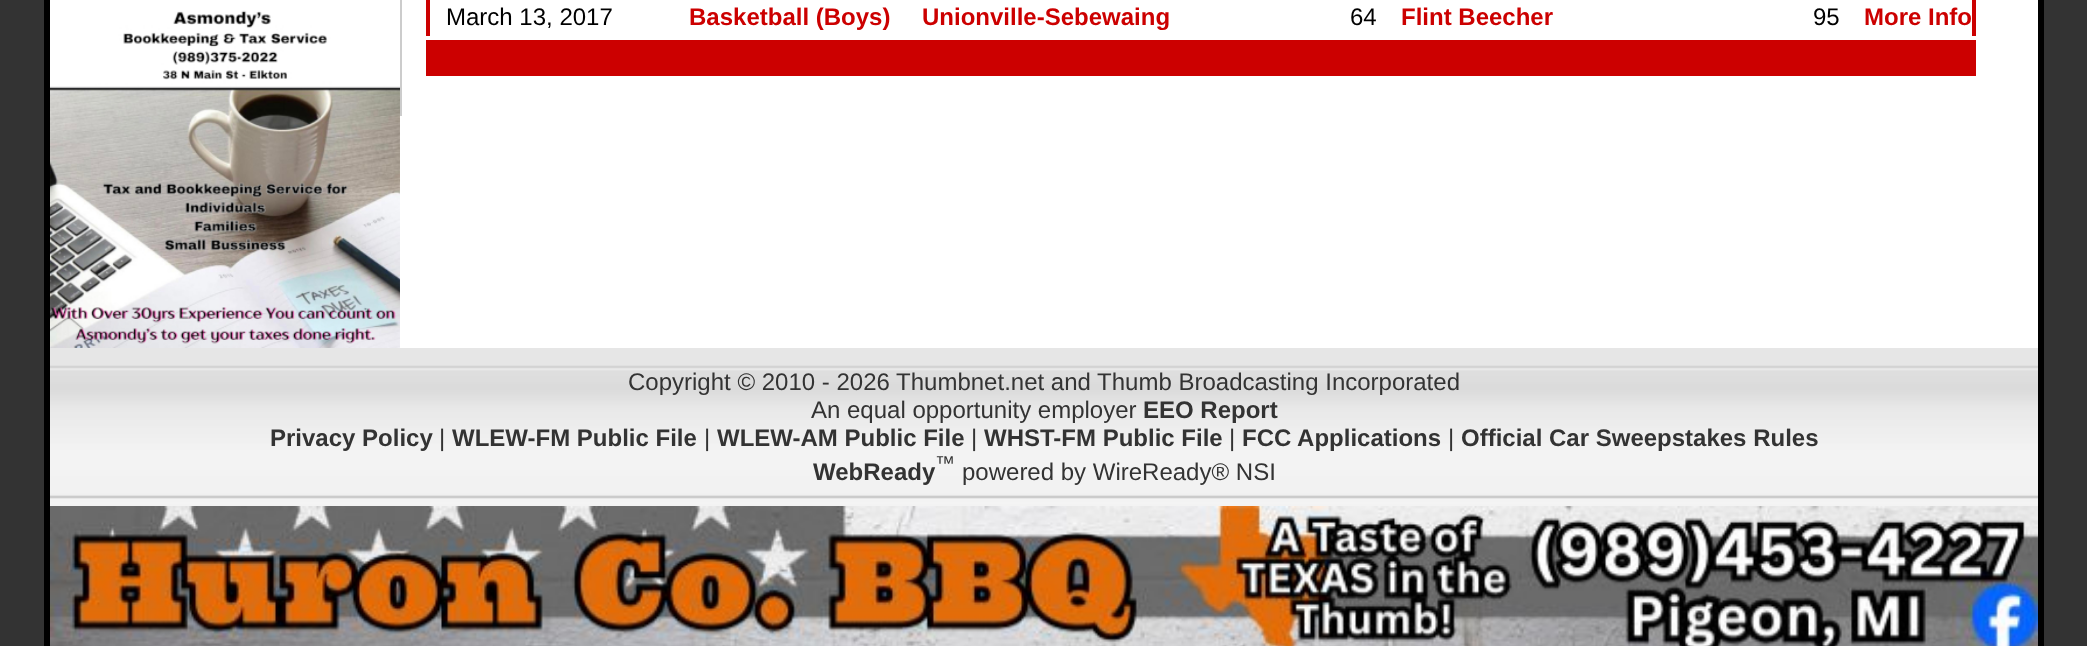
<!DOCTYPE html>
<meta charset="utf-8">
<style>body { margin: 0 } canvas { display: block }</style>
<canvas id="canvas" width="2087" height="646"></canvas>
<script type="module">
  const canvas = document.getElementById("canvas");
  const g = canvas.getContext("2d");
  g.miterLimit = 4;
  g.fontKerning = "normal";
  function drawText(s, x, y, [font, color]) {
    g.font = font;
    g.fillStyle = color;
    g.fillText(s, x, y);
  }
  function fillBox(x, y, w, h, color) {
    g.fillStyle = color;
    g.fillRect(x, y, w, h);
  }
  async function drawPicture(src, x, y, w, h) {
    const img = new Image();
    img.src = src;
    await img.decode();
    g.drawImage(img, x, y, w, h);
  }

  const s1 = ["24px Liberation Sans", "#000000"];
  const s2 = ["bold 24px Liberation Sans", "#CC0000"];
  const s3 = ["24px Liberation Sans", "#333333"];
  const s4 = ["bold 24px Liberation Sans", "#333333"];
  const s5 = ["20px Liberation Sans", "#333333"];

  fillBox(0, 0, 2087, 646, "#333333");
  fillBox(50, 0, 1988, 348, "#FFFFFF");
  fillBox(2038, 0, 6, 646, "#000000");
  fillBox(44, 0, 6, 646, "#000000");
  await drawPicture("pic1.png", 50, 10, 350, 338);
  fillBox(400, 0, 2, 116, "#CCCCCC");
  fillBox(1972, 0, 4, 36, "#CC0000");
  fillBox(426, 0, 4, 36, "#CC0000");
  drawText("March 13, 2017", 446, 25, s1);
  drawText("Basketball (Boys)", 689, 25, s2);
  drawText("Unionville-Sebewaing", 922, 25, s2);
  drawText("64", 1350, 25, s1);
  drawText("Flint Beecher", 1401, 25, s2);
  drawText("95", 1813, 25, s1);
  drawText("More Info", 1864, 25, s2);
  fillBox(426, 40, 1550, 36, "#CC0000");
  await drawPicture("pic2.png", 50, 348, 1988, 158);
  drawText("Copyright © 2010 - 2026 Thumbnet.net and Thumb Broadcasting Incorporated", 628, 390, s3);
  drawText("An equal opportunity employer", 811, 418, s3);
  drawText("EEO Report", 1143, 418, s4);
  drawText("Privacy Policy", 270, 446, s4);
  drawText("|", 439, 446, s3);
  drawText("WLEW-FM Public File", 452, 446, s4);
  drawText("|", 704, 446, s3);
  drawText("WLEW-AM Public File", 717, 446, s4);
  drawText("|", 971, 446, s3);
  drawText("WHST-FM Public File", 984, 446, s4);
  drawText("|", 1229, 446, s3);
  drawText("FCC Applications", 1242, 446, s4);
  drawText("|", 1448, 446, s3);
  drawText("Official Car Sweepstakes Rules", 1461, 446, s4);
  drawText("™", 935, 470, s5);
  drawText("WebReady", 813, 480, s4);
  drawText("powered by WireReady® NSI", 962, 480, s3);
  await drawPicture("pic3.png", 50, 506, 1988, 140);
</script>
